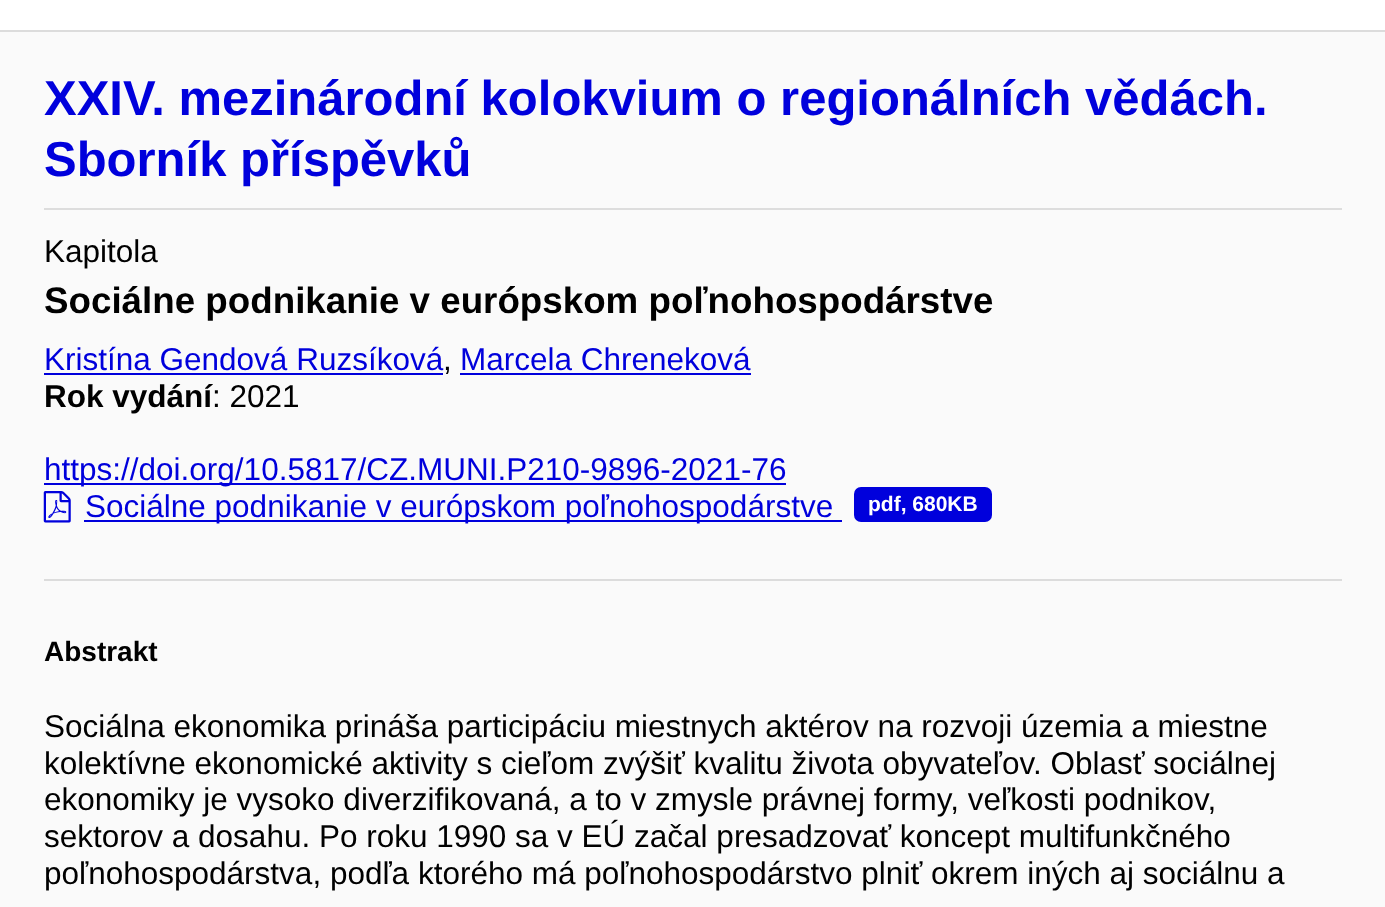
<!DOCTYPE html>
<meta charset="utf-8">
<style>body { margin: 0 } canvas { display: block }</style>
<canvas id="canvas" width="1385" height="907"></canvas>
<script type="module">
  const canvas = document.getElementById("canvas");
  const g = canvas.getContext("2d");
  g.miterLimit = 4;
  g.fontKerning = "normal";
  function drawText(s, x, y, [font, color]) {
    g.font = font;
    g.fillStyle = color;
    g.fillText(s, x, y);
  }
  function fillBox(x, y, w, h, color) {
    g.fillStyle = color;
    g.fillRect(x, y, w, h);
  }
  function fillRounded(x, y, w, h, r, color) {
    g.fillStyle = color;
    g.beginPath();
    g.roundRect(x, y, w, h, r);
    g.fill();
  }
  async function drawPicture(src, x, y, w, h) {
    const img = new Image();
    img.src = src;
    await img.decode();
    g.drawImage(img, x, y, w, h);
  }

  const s1 = ["bold 49px Liberation Sans", "#0000DC"];
  const s2 = ["31.5px Liberation Sans", "#000000"];
  const s3 = ["bold 36.75px Liberation Sans", "#000000"];
  const s4 = ["31.5px Liberation Sans", "#0000DC"];
  const s5 = ["bold 31.5px Liberation Sans", "#000000"];
  const s6 = ["bold 21px Liberation Sans", "#FFFFFF"];
  const s7 = ["bold 28px Liberation Sans", "#000000"];

  fillBox(0, 0, 1385, 907, "#FAFAFA");
  fillBox(0, 0, 1385, 30, "#FFFFFF");
  fillBox(0, 30, 1385, 2, "#DCDCDC");
  fillBox(44, 208, 1298, 2, "#DDDDDD");
  drawText("XXIV. mezinárodní kolokvium o regionálních vědách.", 44, 115, s1);
  drawText("Sborník příspěvků", 44, 176, s1);
  drawText("Kapitola", 44, 262, s2);
  drawText("Sociálne podnikanie v európskom poľnohospodárstve", 44, 313, s3);
  drawText("Kristína Gendová Ruzsíková", 44, 370, s4);
  fillBox(44, 373, 399, 2, "#0000DC");
  drawText(",", 443, 370, s2);
  drawText("Marcela Chreneková", 460, 370, s4);
  fillBox(460, 373, 291, 2, "#0000DC");
  drawText("Rok vydání", 44, 407, s5);
  drawText(": 2021", 212, 407, s2);
  fillBox(44, 483, 742, 2, "#0000DC");
  drawText("https://doi.org/10.5817/CZ.MUNI.P210-9896-2021-76", 44, 480, s4);
  await drawPicture("pic1.png", 43, 491, 28, 32);
  fillBox(84, 520, 758, 2, "#0000DC");
  drawText("Sociálne podnikanie v európskom poľnohospodárstve", 85, 517, s4);
  fillRounded(854, 487, 138, 35, 7, "#0000DC");
  drawText("pdf, 680KB", 868, 511, s6);
  fillBox(44, 579, 1298, 2, "#DCDCDC");
  drawText("Abstrakt", 44, 661, s7);
  drawText("Sociálna ekonomika prináša participáciu miestnych aktérov na rozvoji územia a miestne", 44, 737, s2);
  drawText("kolektívne ekonomické aktivity s cieľom zvýšiť kvalitu života obyvateľov. Oblasť sociálnej", 44, 774, s2);
  drawText("ekonomiky je vysoko diverzifikovaná, a to v zmysle právnej formy, veľkosti podnikov,", 44, 810, s2);
  drawText("sektorov a dosahu. Po roku 1990 sa v EÚ začal presadzovať koncept multifunkčného", 44, 847, s2);
  drawText("poľnohospodárstva, podľa ktorého má poľnohospodárstvo plniť okrem iných aj sociálnu a", 44, 884, s2);
</script>
